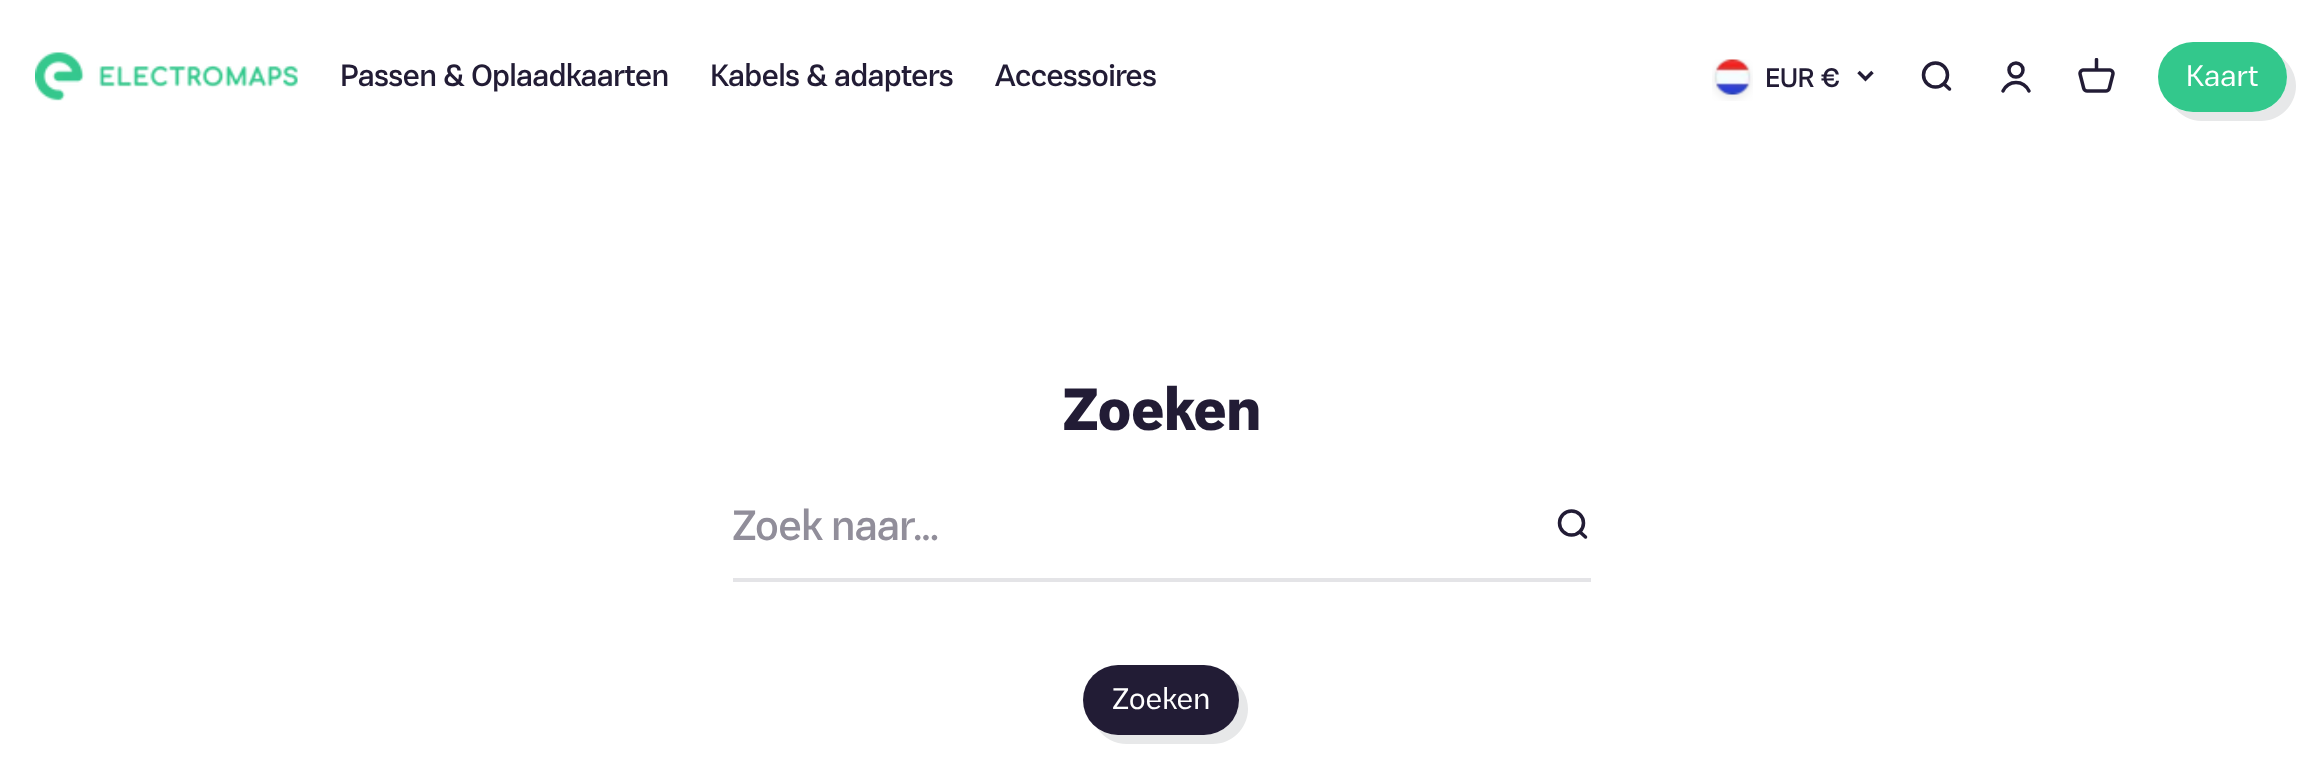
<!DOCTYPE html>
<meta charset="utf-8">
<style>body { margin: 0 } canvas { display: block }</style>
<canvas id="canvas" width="2321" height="772"></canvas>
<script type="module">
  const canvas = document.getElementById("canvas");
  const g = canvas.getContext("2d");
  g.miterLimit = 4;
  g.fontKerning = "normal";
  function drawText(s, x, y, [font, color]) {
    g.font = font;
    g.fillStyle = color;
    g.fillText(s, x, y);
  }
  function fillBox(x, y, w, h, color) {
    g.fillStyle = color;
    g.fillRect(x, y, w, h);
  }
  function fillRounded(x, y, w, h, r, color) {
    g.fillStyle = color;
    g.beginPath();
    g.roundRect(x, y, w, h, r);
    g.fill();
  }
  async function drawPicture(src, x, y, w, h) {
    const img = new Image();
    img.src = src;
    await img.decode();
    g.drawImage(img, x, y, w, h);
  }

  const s1 = ["bold 28px 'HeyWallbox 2'", "#221C35"];
  const s2 = ["bold 24.5px 'HeyWallbox 2'", "#221C35"];
  const s3 = ["28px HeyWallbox", "#FFFFFF"];
  const s4 = ["bold 56px HeyWallbox", "#221C35"];
  const s5 = ["bold 38.5px 'HeyWallbox 2'", "#918E9A"];

  fillBox(0, 0, 2321, 772, "#FFFFFF");
  await drawPicture("pic1.png", 35, 52, 263, 49);
  drawText("Passen & Oplaadkaarten", 340, 86, s1);
  drawText("Kabels & adapters", 710, 86, s1);
  drawText("Accessoires", 995, 86, s1);
  await drawPicture("pic2.png", 1712, 59, 41, 42);
  drawText("EUR €", 1765, 87, s2);
  g.beginPath();
  g.moveTo(1858.5, 72);
  g.lineTo(1865.5, 79);
  g.lineTo(1872.5, 72);
  g.strokeStyle = "#221C35";
  g.lineWidth = 3.5;
  g.stroke();
  g.beginPath();
  g.arc(1935.5, 75, 12, 0, Math.PI * 2);
  g.stroke();
  g.beginPath();
  g.moveTo(1944, 84);
  g.lineTo(1949.5, 89);
  g.lineCap = "round";
  g.lineJoin = "round";
  g.stroke();
  g.beginPath();
  g.arc(2016, 70, 7, 0, Math.PI * 2);
  g.stroke();
  g.beginPath();
  g.moveTo(2003, 91);
  g.bezierCurveTo(2008.5, 79.5, 2023.5, 79.5, 2029, 91);
  g.lineJoin = "miter";
  g.stroke();
  await drawPicture("pic3.png", 2078, 58, 37, 35);
  g.fillStyle = "#E7E8E9";
  g.beginPath();
  g.moveTo(2173, 106);
  g.bezierCurveTo(2180, 115, 2190, 121, 2202, 121);
  g.lineTo(2261, 121);
  g.bezierCurveTo(2280, 121, 2296, 105, 2296, 86);
  g.bezierCurveTo(2296, 74, 2290, 64, 2281, 57);
  g.bezierCurveTo(2285, 63, 2287, 70, 2287, 77);
  g.bezierCurveTo(2287, 96, 2272, 112, 2252, 112);
  g.lineTo(2193, 112);
  g.bezierCurveTo(2186, 112, 2179, 110, 2173, 106);
  g.closePath();
  g.fill();
  fillRounded(2158, 42, 129, 70, 35, "#33C88C");
  drawText("Kaart", 2186, 86, s3);
  g.letterSpacing = "-0.5px";
  drawText("Zoeken", 1062, 430, s4);
  fillBox(733, 578, 858, 4, "#E4E4E7");
  g.letterSpacing = "0px";
  drawText("Zoek naar...", 732, 540, s5);
  g.beginPath();
  g.arc(1571.5, 523, 12, 0, Math.PI * 2);
  g.stroke();
  g.beginPath();
  g.moveTo(1580, 532);
  g.lineTo(1585.5, 537);
  g.lineJoin = "round";
  g.stroke();
  g.fillStyle = "#E7E8E9";
  g.beginPath();
  g.moveTo(1098, 729);
  g.bezierCurveTo(1104, 738, 1115, 744, 1127, 744);
  g.lineTo(1213, 744);
  g.bezierCurveTo(1232, 744, 1248, 728, 1248, 709);
  g.bezierCurveTo(1248, 697, 1242, 686, 1233, 680);
  g.bezierCurveTo(1237, 686, 1239, 693, 1239, 700);
  g.bezierCurveTo(1239, 719, 1223, 735, 1204, 735);
  g.lineTo(1118, 735);
  g.bezierCurveTo(1111, 735, 1104, 733, 1098, 729);
  g.closePath();
  g.fill();
  fillRounded(1083, 665, 156, 70, 35, "#221C35");
  drawText("Zoeken", 1112, 709, s3);
</script>
